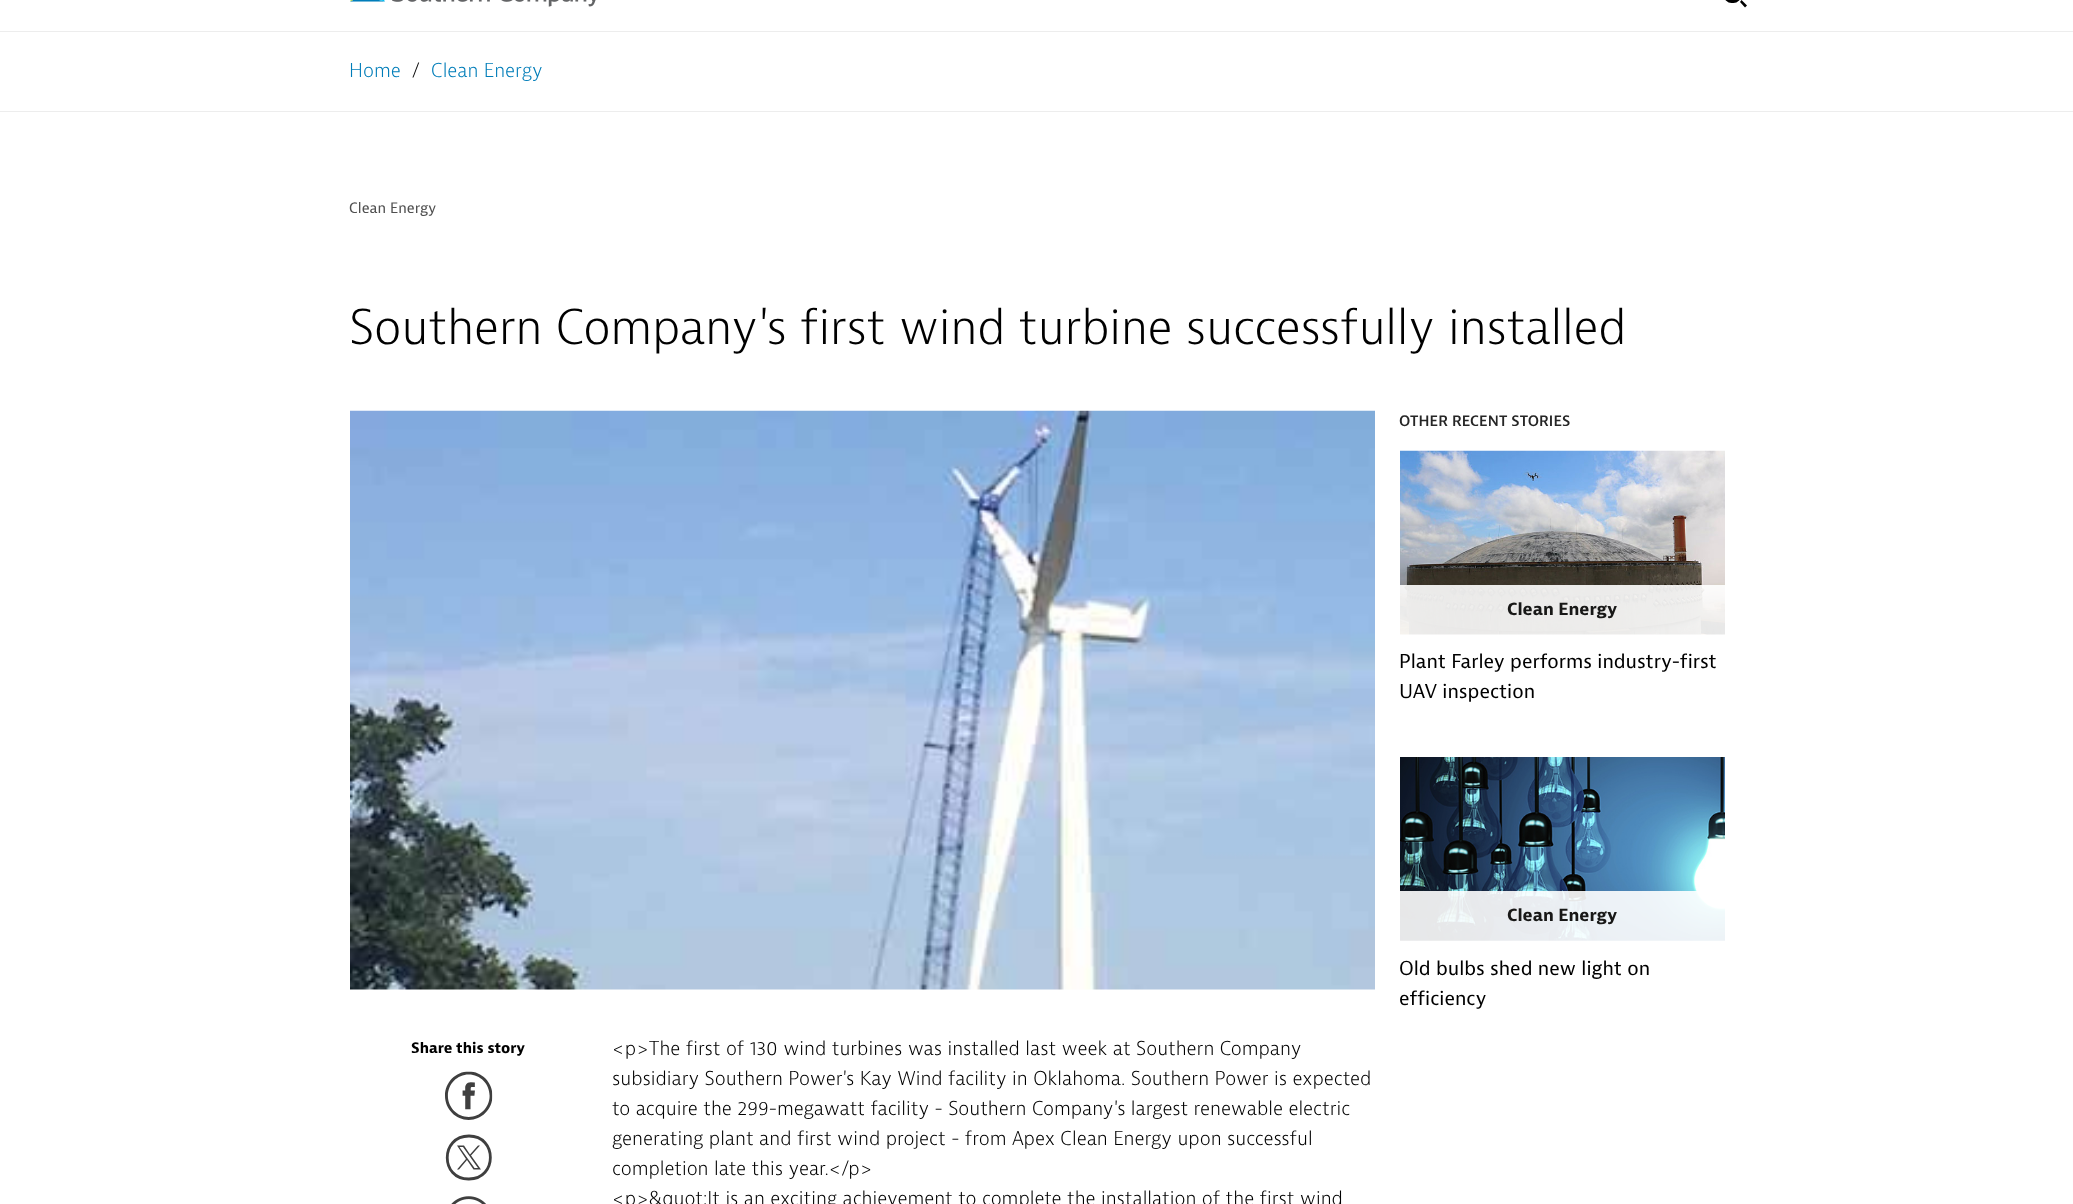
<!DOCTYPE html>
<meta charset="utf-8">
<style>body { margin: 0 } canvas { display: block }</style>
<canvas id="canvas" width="2073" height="1204"></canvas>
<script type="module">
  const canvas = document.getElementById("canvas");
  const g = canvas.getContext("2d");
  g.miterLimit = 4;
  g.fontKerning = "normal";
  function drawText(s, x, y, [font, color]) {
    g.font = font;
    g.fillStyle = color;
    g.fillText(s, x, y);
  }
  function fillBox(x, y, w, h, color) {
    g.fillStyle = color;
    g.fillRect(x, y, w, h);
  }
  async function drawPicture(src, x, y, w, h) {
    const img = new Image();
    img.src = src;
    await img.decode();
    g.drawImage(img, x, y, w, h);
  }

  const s1 = ["300 20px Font", "#007DB9"];
  const s2 = ["300 20px Font", "#000000"];
  const s3 = ["15px Font", "#505050"];
  const s4 = ["300 50px Font", "#000000"];
  const s5 = ["600 15px Font", "#262626"];
  const s6 = ["bold 17.5px Font", "#181817"];
  const s7 = ["20px Font", "#000000"];
  const s8 = ["bold 15px Font", "#000000"];

  fillBox(0, 0, 2073, 1204, "#FFFFFF");
  fillBox(0, 31, 2073, 1, "#EDEDED");
  await drawPicture("pic1.png", 350, 0, 246, 7);
  g.beginPath();
  g.roundRect(1725.5, -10.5, 14, 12, 7);
  g.strokeStyle = "#000000";
  g.lineWidth = 3;
  g.stroke();
  g.fillStyle = "#000000";
  g.beginPath();
  g.moveTo(1741.5, 0);
  g.lineTo(1747, 5.5);
  g.lineTo(1745, 7.5);
  g.lineTo(1740, 2);
  g.closePath();
  g.fill();
  fillBox(0, 111, 2073, 1, "#EDEDED");
  drawText("Home", 349, 77, s1);
  drawText("/", 412, 77, s2);
  drawText("Clean Energy", 431, 77, s1);
  drawText("Clean Energy", 349, 213, s3);
  g.letterSpacing = "-0.3px";
  drawText("Southern Company's first wind turbine successfully installed", 349, 344, s4);
  g.letterSpacing = "0.1px";
  drawText("OTHER RECENT STORIES", 1399, 426, s5);
  await drawPicture("pic2.png", 1400, 450, 325, 185);
  fillBox(1400, 585, 325, 50, "rgba(255, 255, 255, 0.9)");
  g.letterSpacing = "0px";
  drawText("Clean Energy", 1507, 615, s6);
  drawText("Plant Farley performs industry-first", 1399, 668, s7);
  drawText("UAV inspection", 1399, 698, s7);
  await drawPicture("pic3.png", 1400, 757, 325, 184);
  fillBox(1400, 891, 325, 50, "rgba(255, 255, 255, 0.9)");
  drawText("Clean Energy", 1507, 921, s6);
  drawText("Old bulbs shed new light on", 1399, 975, s7);
  drawText("efficiency", 1399, 1005, s7);
  await drawPicture("pic4.png", 350, 410, 1025, 580);
  drawText("Share this story", 411, 1053, s8);
  await drawPicture("pic5.png", 445, 1071, 48, 49);
  g.beginPath();
  g.moveTo(469, 1136);
  g.bezierCurveTo(497.5, 1136, 497.5, 1179, 469, 1179);
  g.bezierCurveTo(440, 1179.5, 440, 1136, 469, 1136);
  g.closePath();
  g.strokeStyle = "#3F3F3F";
  g.lineWidth = 2.8;
  g.stroke();
  g.fillStyle = "#3F3F3F";
  g.beginPath();
  g.moveTo(471, 1155.5);
  g.lineTo(480, 1145.5);
  g.lineTo(478, 1145.5);
  g.lineTo(470, 1154.5);
  g.lineTo(464, 1145.5);
  g.lineTo(457, 1145.5);
  g.lineTo(466, 1159);
  g.lineTo(457, 1169.5);
  g.lineTo(459, 1169.5);
  g.lineTo(467, 1160);
  g.lineTo(473.5, 1169.5);
  g.lineTo(481, 1169.5);
  g.closePath();
  g.moveTo(468, 1159);
  g.lineTo(459.5, 1147);
  g.lineTo(463, 1147);
  g.lineTo(478, 1168);
  g.lineTo(474.5, 1168);
  g.closePath();
  g.fill();
  await drawPicture("pic6.png", 451, 1196, 35, 8);
  drawText("<p>The first of 130 wind turbines was installed last week at Southern Company", 612, 1055, s2);
  drawText("subsidiary Southern Power's Kay Wind facility in Oklahoma. Southern Power is expected", 612, 1085, s2);
  drawText("to acquire the 299-megawatt facility - Southern Company's largest renewable electric", 612, 1115, s2);
  drawText("generating plant and first wind project - from Apex Clean Energy upon successful", 612, 1145, s2);
  drawText("completion late this year.<\/p>", 612, 1175, s2);
  drawText("<p>&quot;It is an exciting achievement to complete the installation of the first wind", 612, 1205, s2);
</script>
